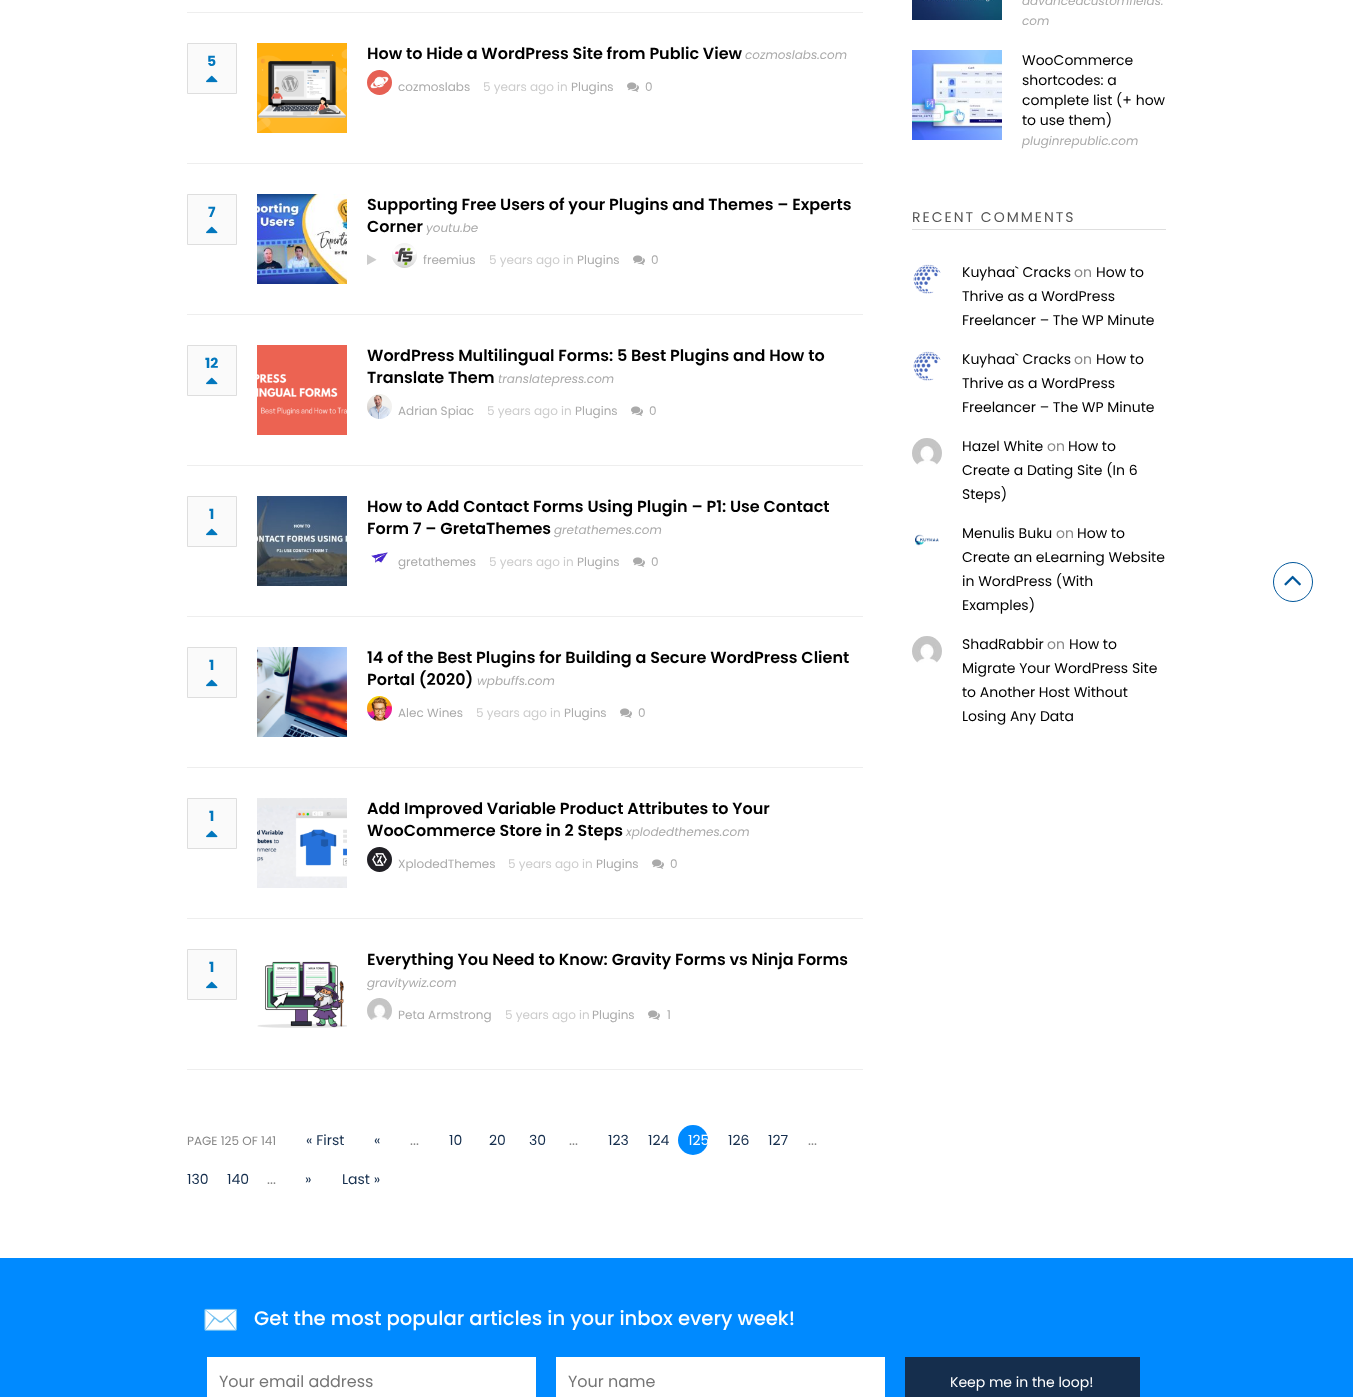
<!DOCTYPE html>
<meta charset="utf-8">
<style>body { margin: 0 } canvas { display: block }</style>
<canvas id="canvas" width="1353" height="1397"></canvas>
<script type="module">
  const canvas = document.getElementById("canvas");
  const g = canvas.getContext("2d");
  g.miterLimit = 4;
  g.fontKerning = "normal";
  function drawText(s, x, y, [font, color]) {
    g.font = font;
    g.fillStyle = color;
    g.fillText(s, x, y);
  }
  function fillBox(x, y, w, h, color) {
    g.fillStyle = color;
    g.fillRect(x, y, w, h);
  }
  async function drawPicture(src, x, y, w, h) {
    const img = new Image();
    img.src = src;
    await img.decode();
    g.drawImage(img, x, y, w, h);
  }

  const s1 = ["bold 14px Poppins", "#0277BD"];
  const s2 = ["600 16px Poppins", "#000000"];
  const s3 = ["italic 12px Poppins", "#AAAAAA"];
  const s4 = ["12px Poppins", "#AAAAAA"];
  const s5 = ["12px Poppins", "#CCCCCC"];
  const s6 = ["12px Poppins", "#888888"];
  const s7 = ["14px Poppins", "#152E4D"];
  const s8 = ["14px Poppins", "#FFFFFF"];
  const s9 = ["14px Poppins", "#888888"];
  const s10 = ["14px Poppins", "#000000"];
  const s11 = ["14px Poppins", "#555555"];
  const s12 = ["30px Noto Color Emoji", "#FFFFFF"];
  const s13 = ["500 19.6px Poppins", "#FFFFFF"];
  const s14 = ["16px Poppins", "#757575"];

  fillBox(0, 0, 1353, 1397, "#FFFFFF");
  fillBox(187, 12, 676, 1, "#EEEEEE");
  fillBox(187, 163, 676, 1, "#EEEEEE");
  g.fillStyle = "#FAFAFA";
  g.beginPath();
  g.rect(187.5, 43.5, 49, 50);
  g.fill();
  g.strokeStyle = "#DEDEDE";
  g.stroke();
  drawText("5", 207, 66, s1);
  await drawPicture("pic1.png", 206, 75, 12, 8);
  await drawPicture("pic2.png", 257, 43, 90, 90);
  drawText("How to Hide a WordPress Site from Public View", 367, 59, s2);
  drawText("cozmoslabs.com", 745, 59, s3);
  await drawPicture("pic3.png", 367, 70, 25, 25);
  drawText("cozmoslabs", 398, 91, s4);
  drawText("5 years ago in", 483, 91, s5);
  drawText("Plugins", 571, 91, s4);
  await drawPicture("pic4.png", 627, 82, 12, 10);
  drawText("0", 645, 91, s4);
  fillBox(187, 314, 676, 1, "#EEEEEE");
  g.fillStyle = "#FAFAFA";
  g.beginPath();
  g.rect(187.5, 194.5, 49, 50);
  g.fill();
  g.stroke();
  drawText("7", 208, 217, s1);
  await drawPicture("pic1.png", 206, 226, 12, 8);
  await drawPicture("pic5.png", 257, 194, 90, 90);
  drawText("Supporting Free Users of your Plugins and Themes – Experts", 367, 210, s2);
  drawText("Corner", 367, 232, s2);
  drawText("youtu.be", 426, 232, s3);
  await drawPicture("pic6.png", 367, 254, 10, 11);
  await drawPicture("pic7.png", 392, 243, 25, 25);
  drawText("freemius", 423, 264, s4);
  drawText("5 years ago in", 489, 264, s5);
  drawText("Plugins", 577, 264, s4);
  await drawPicture("pic4.png", 633, 255, 12, 10);
  drawText("0", 651, 264, s4);
  fillBox(187, 465, 676, 1, "#EEEEEE");
  g.fillStyle = "#FAFAFA";
  g.beginPath();
  g.rect(187.5, 345.5, 49, 50);
  g.fill();
  g.stroke();
  drawText("12", 205, 368, s1);
  await drawPicture("pic1.png", 206, 377, 12, 8);
  await drawPicture("pic8.png", 257, 345, 90, 90);
  drawText("WordPress Multilingual Forms: 5 Best Plugins and How to", 367, 361, s2);
  drawText("Translate Them", 367, 383, s2);
  drawText("translatepress.com", 498, 383, s3);
  await drawPicture("pic9.png", 367, 394, 25, 25);
  drawText("Adrian Spiac", 398, 415, s4);
  drawText("5 years ago in", 487, 415, s5);
  drawText("Plugins", 575, 415, s4);
  await drawPicture("pic4.png", 631, 406, 12, 10);
  drawText("0", 649, 415, s4);
  fillBox(187, 616, 676, 1, "#EEEEEE");
  g.fillStyle = "#FAFAFA";
  g.beginPath();
  g.rect(187.5, 496.5, 49, 50);
  g.fill();
  g.stroke();
  drawText("1", 209, 519, s1);
  await drawPicture("pic1.png", 206, 528, 12, 8);
  await drawPicture("pic10.png", 257, 496, 90, 90);
  drawText("How to Add Contact Forms Using Plugin – P1: Use Contact", 367, 512, s2);
  drawText("Form 7 – GretaThemes", 367, 534, s2);
  drawText("gretathemes.com", 554, 534, s3);
  await drawPicture("pic11.png", 371, 552, 17, 11);
  drawText("gretathemes", 398, 566, s4);
  drawText("5 years ago in", 489, 566, s5);
  drawText("Plugins", 577, 566, s4);
  await drawPicture("pic4.png", 633, 557, 12, 10);
  drawText("0", 651, 566, s4);
  fillBox(187, 767, 676, 1, "#EEEEEE");
  g.fillStyle = "#FAFAFA";
  g.beginPath();
  g.rect(187.5, 647.5, 49, 50);
  g.fill();
  g.stroke();
  drawText("1", 209, 670, s1);
  await drawPicture("pic1.png", 206, 679, 12, 8);
  await drawPicture("pic12.png", 257, 647, 90, 90);
  drawText("14 of the Best Plugins for Building a Secure WordPress Client", 367, 663, s2);
  drawText("Portal (2020)", 367, 685, s2);
  drawText("wpbuffs.com", 477, 685, s3);
  await drawPicture("pic13.png", 367, 696, 25, 25);
  drawText("Alec Wines", 398, 717, s4);
  drawText("5 years ago in", 476, 717, s5);
  drawText("Plugins", 564, 717, s4);
  await drawPicture("pic4.png", 620, 708, 12, 10);
  drawText("0", 638, 717, s4);
  fillBox(187, 918, 676, 1, "#EEEEEE");
  g.fillStyle = "#FAFAFA";
  g.beginPath();
  g.rect(187.5, 798.5, 49, 50);
  g.fill();
  g.stroke();
  drawText("1", 209, 821, s1);
  await drawPicture("pic1.png", 206, 830, 12, 8);
  await drawPicture("pic14.png", 257, 798, 90, 90);
  drawText("Add Improved Variable Product Attributes to Your", 367, 814, s2);
  drawText("WooCommerce Store in 2 Steps", 367, 836, s2);
  drawText("xplodedthemes.com", 626, 836, s3);
  await drawPicture("pic15.png", 367, 847, 25, 25);
  drawText("XplodedThemes", 398, 868, s4);
  drawText("5 years ago in", 508, 868, s5);
  drawText("Plugins", 596, 868, s4);
  await drawPicture("pic4.png", 652, 859, 12, 10);
  drawText("0", 670, 868, s4);
  fillBox(187, 1069, 676, 1, "#EEEEEE");
  g.fillStyle = "#FAFAFA";
  g.beginPath();
  g.rect(187.5, 949.5, 49, 50);
  g.fill();
  g.stroke();
  drawText("1", 209, 972, s1);
  await drawPicture("pic1.png", 206, 981, 12, 8);
  await drawPicture("pic16.png", 257, 961, 90, 67);
  drawText("Everything You Need to Know: Gravity Forms vs Ninja Forms", 367, 965, s2);
  drawText("gravitywiz.com", 367, 987, s3);
  await drawPicture("pic17.png", 367, 998, 25, 22);
  drawText("Peta Armstrong", 398, 1019, s4);
  drawText("5 years ago in", 505, 1019, s5);
  drawText("Plugins", 592, 1019, s4);
  await drawPicture("pic4.png", 648, 1010, 12, 10);
  drawText("1", 667, 1019, s4);
  drawText("PAGE 125 OF 141", 187, 1145, s6);
  drawText("« First", 306, 1145, s7);
  drawText("«", 374, 1145, s7);
  drawText("10", 449, 1145, s7);
  drawText("20", 489, 1145, s7);
  drawText("30", 529, 1145, s7);
  drawText("123", 608, 1145, s7);
  drawText("124", 648, 1145, s7);
  g.fillStyle = "#008AFF";
  g.beginPath();
  g.arc(693, 1140, 15, 0, Math.PI * 2);
  g.fill();
  drawText("125", 688, 1145, s8);
  drawText("126", 728, 1145, s7);
  drawText("127", 768, 1145, s7);
  drawText("...", 410, 1145, s9);
  drawText("...", 569, 1145, s9);
  drawText("...", 808, 1145, s9);
  drawText("130", 187, 1184, s7);
  drawText("140", 227, 1184, s7);
  drawText("»", 305, 1184, s7);
  drawText("Last »", 342, 1184, s7);
  drawText("...", 267, 1184, s9);
  await drawPicture("pic18.png", 912, 0, 90, 20);
  drawText("advancedcustomfields.", 1022, 5, s3);
  drawText("com", 1022, 25, s3);
  await drawPicture("pic19.png", 912, 50, 90, 90);
  drawText("WooCommerce", 1022, 65, s10);
  drawText("shortcodes: a", 1022, 85, s10);
  drawText("complete list (+ how", 1022, 105, s10);
  drawText("to use them)", 1022, 125, s10);
  drawText("pluginrepublic.com", 1022, 145, s3);
  fillBox(912, 229, 254, 1, "#DEDEDE");
  g.letterSpacing = "2px";
  drawText("RECENT COMMENTS", 912, 222, s11);
  await drawPicture("pic20.png", 913, 264, 28, 30);
  g.letterSpacing = "0px";
  drawText("Kuyhaa` Cracks", 962, 277, s10);
  drawText("on", 1074, 277, s9);
  drawText("How to", 1096, 277, s10);
  drawText("Thrive as a WordPress", 962, 301, s10);
  drawText("Freelancer – The WP Minute", 962, 325, s10);
  await drawPicture("pic20.png", 913, 351, 28, 30);
  drawText("Kuyhaa` Cracks", 962, 364, s10);
  drawText("on", 1074, 364, s9);
  drawText("How to", 1096, 364, s10);
  drawText("Thrive as a WordPress", 962, 388, s10);
  drawText("Freelancer – The WP Minute", 962, 412, s10);
  await drawPicture("pic21.png", 912, 438, 30, 27);
  drawText("Hazel White", 962, 451, s10);
  drawText("on", 1047, 451, s9);
  drawText("How to", 1068, 451, s10);
  drawText("Create a Dating Site (In 6", 962, 475, s10);
  drawText("Steps)", 962, 499, s10);
  await drawPicture("pic22.png", 915, 534, 24, 12);
  drawText("Menulis Buku", 962, 538, s10);
  drawText("on", 1056, 538, s9);
  drawText("How to", 1077, 538, s10);
  drawText("Create an eLearning Website", 962, 562, s10);
  drawText("in WordPress (With", 962, 586, s10);
  drawText("Examples)", 962, 610, s10);
  await drawPicture("pic23.png", 912, 636, 30, 27);
  drawText("ShadRabbir", 962, 649, s10);
  drawText("on", 1047, 649, s9);
  drawText("How to", 1069, 649, s10);
  drawText("Migrate Your WordPress Site", 962, 673, s10);
  drawText("to Another Host Without", 962, 697, s10);
  drawText("Losing Any Data", 962, 721, s10);
  g.beginPath();
  g.arc(1293, 582, 19.5, 0, Math.PI * 2);
  g.strokeStyle = "#01579B";
  g.stroke();
  await drawPicture("pic24.png", 1284, 575, 17, 11);
  fillBox(0, 1258, 1353, 139, "#008AFF");
  drawText("✉️", 202, 1330, s12);
  drawText("Get the most popular articles in your inbox every week!", 254, 1325, s13);
  fillBox(207, 1357, 329, 40, "#FFFFFF");
  drawText("Your email address", 219, 1387, s14);
  fillBox(556, 1357, 329, 40, "#FFFFFF");
  drawText("Your name", 568, 1387, s14);
  fillBox(905, 1357, 235, 40, "#152E4D");
  drawText("Keep me in the loop!", 950, 1387, s8);
</script>
